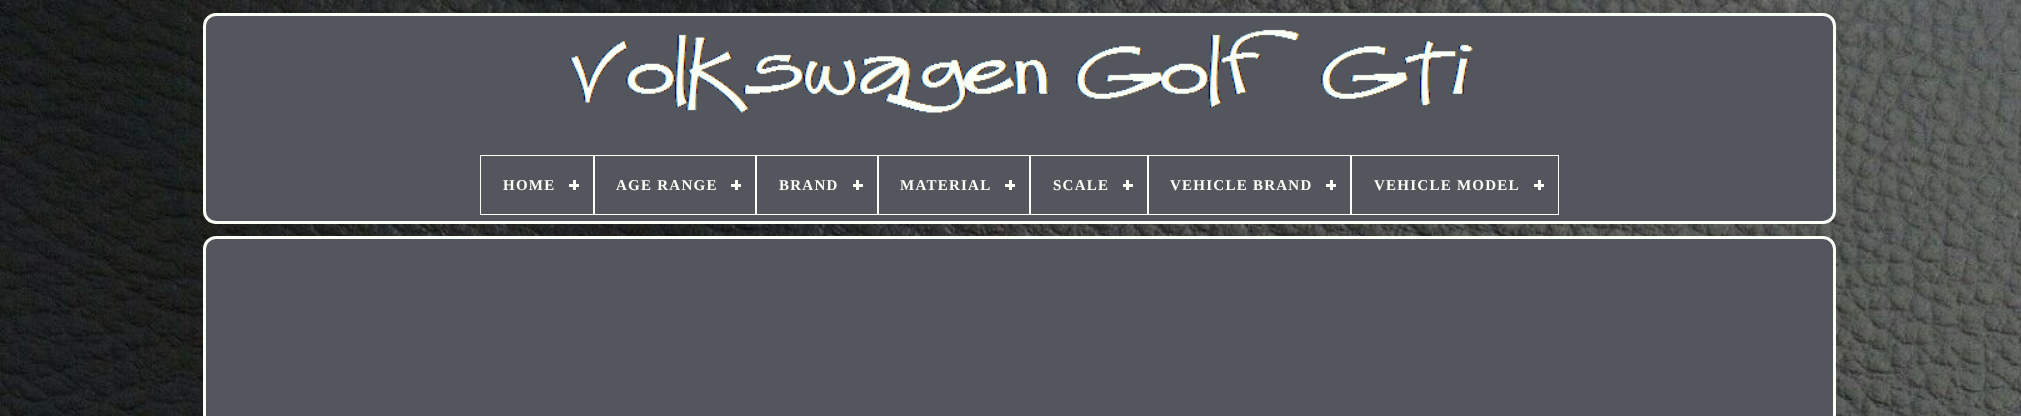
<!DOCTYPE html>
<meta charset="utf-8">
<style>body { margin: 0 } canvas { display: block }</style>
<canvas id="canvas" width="2021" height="416"></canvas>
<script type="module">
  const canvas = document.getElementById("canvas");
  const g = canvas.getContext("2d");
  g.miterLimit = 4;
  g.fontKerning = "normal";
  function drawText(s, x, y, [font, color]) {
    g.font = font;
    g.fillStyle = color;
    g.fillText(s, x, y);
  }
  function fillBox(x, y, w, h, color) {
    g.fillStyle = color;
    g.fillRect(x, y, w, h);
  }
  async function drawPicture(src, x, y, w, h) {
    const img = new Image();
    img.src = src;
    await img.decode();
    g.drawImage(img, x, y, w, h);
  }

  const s1 = ["bold 15px Liberation Serif", "#F9FFF6"];

  fillBox(0, 0, 2021, 416, "#FFFFFF");
  await drawPicture("pic1.png", 0, 0, 2021, 416);
  g.fillStyle = "#53565D";
  g.beginPath();
  g.roundRect(204.5, 14.5, 1630, 208, 11.5);
  g.fill();
  g.strokeStyle = "#F9FFF6";
  g.lineWidth = 3;
  g.stroke();
  await drawPicture("pic2.png", 569, 29, 904, 84);
  g.lineWidth = 1;
  g.strokeRect(480.5, 155.5, 113, 59);
  g.letterSpacing = "1.25px";
  drawText("HOME", 503, 190, s1);
  fillBox(573, 180, 3, 10, "#F9FFF6");
  fillBox(569, 184, 10, 3, "#F9FFF6");
  g.strokeRect(594.5, 155.5, 161, 59);
  drawText("AGE RANGE", 616, 190, s1);
  fillBox(735, 180, 3, 10, "#F9FFF6");
  fillBox(731, 184, 10, 3, "#F9FFF6");
  g.strokeRect(756.5, 155.5, 121, 59);
  drawText("BRAND", 779, 190, s1);
  fillBox(856, 180, 3, 10, "#F9FFF6");
  fillBox(853, 184, 10, 3, "#F9FFF6");
  g.strokeRect(878.5, 155.5, 151, 59);
  drawText("MATERIAL", 900, 190, s1);
  fillBox(1009, 180, 3, 10, "#F9FFF6");
  fillBox(1005, 184, 10, 3, "#F9FFF6");
  g.strokeRect(1030.5, 155.5, 117, 59);
  drawText("SCALE", 1053, 190, s1);
  fillBox(1126, 180, 3, 10, "#F9FFF6");
  fillBox(1123, 184, 10, 3, "#F9FFF6");
  g.strokeRect(1148.5, 155.5, 202, 59);
  drawText("VEHICLE BRAND", 1170, 190, s1);
  fillBox(1330, 180, 3, 10, "#F9FFF6");
  fillBox(1326, 184, 10, 3, "#F9FFF6");
  g.strokeRect(1351.5, 155.5, 207, 59);
  drawText("VEHICLE MODEL", 1374, 190, s1);
  fillBox(1538, 180, 3, 10, "#F9FFF6");
  fillBox(1534, 184, 10, 3, "#F9FFF6");
  g.fillStyle = "#53565D";
  g.beginPath();
  g.roundRect(204.5, 237.5, 1630, 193, 11.5);
  g.fill();
  g.lineWidth = 3;
  g.stroke();
</script>
